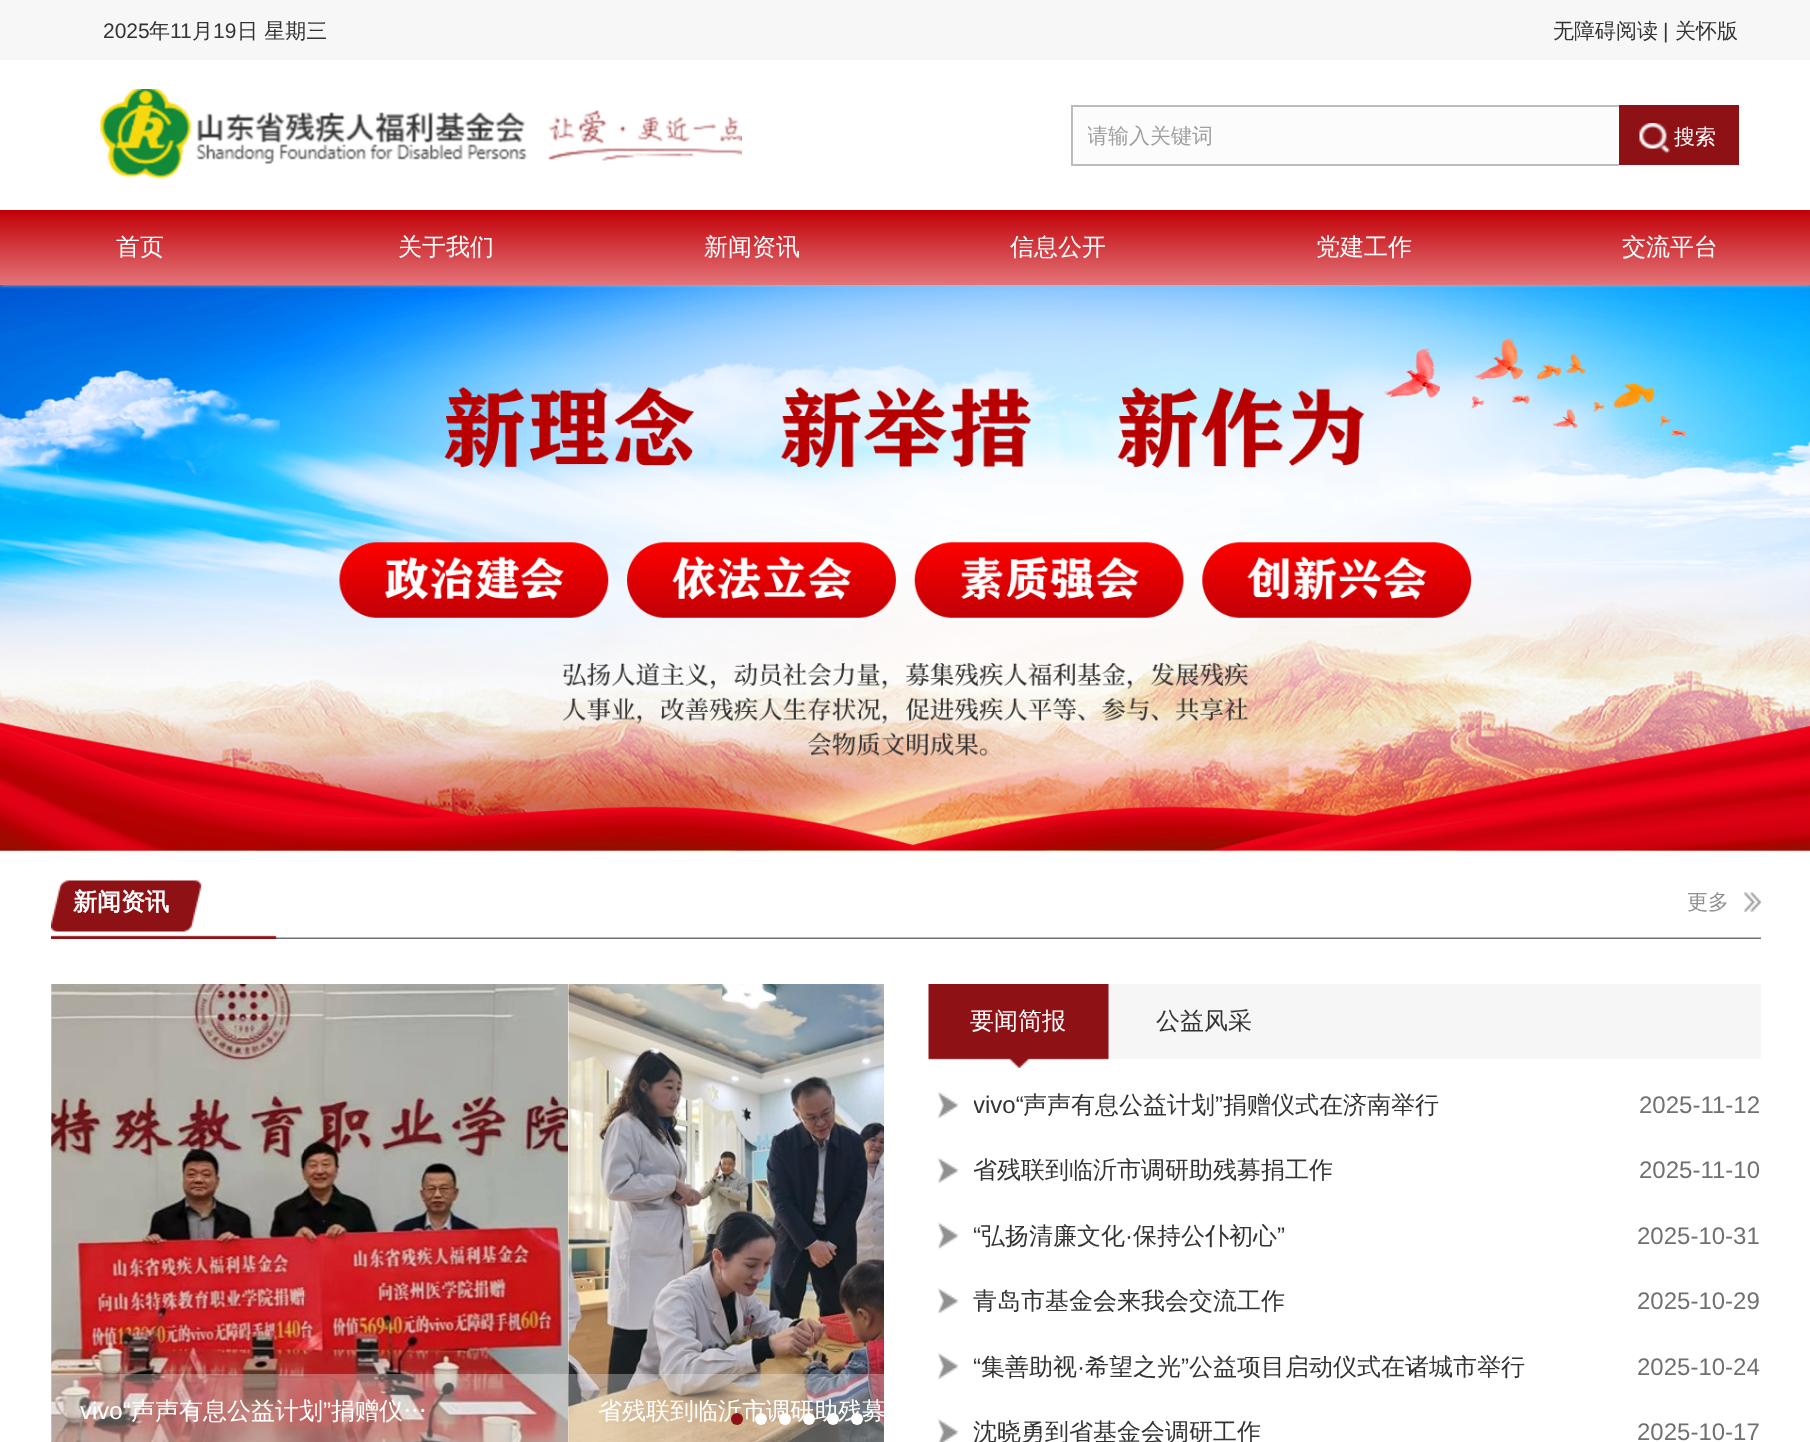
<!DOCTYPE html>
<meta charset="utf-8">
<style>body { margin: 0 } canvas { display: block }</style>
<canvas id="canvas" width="1810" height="1442"></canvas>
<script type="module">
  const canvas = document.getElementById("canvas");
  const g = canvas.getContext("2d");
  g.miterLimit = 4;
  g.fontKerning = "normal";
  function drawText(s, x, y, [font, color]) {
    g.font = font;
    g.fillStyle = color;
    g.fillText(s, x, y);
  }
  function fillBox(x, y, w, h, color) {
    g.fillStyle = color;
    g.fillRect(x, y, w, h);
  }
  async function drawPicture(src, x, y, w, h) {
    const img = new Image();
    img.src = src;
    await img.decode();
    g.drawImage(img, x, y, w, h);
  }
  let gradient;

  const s1 = ["21px Liberation Sans", "#333333"];
  const s2 = ["500 21px WenQuanYi Zen Hei", "#333333"];
  const s3 = ["500 21px WenQuanYi Zen Hei", "#9F9F9F"];
  const s4 = ["500 21px WenQuanYi Zen Hei", "#FFFFFF"];
  const s5 = ["500 24px WenQuanYi Zen Hei", "#FFFFFF"];
  const s6 = ["bold 24px WenQuanYi Zen Hei", "#FFFFFF"];
  const s7 = ["500 21px WenQuanYi Zen Hei", "#909090"];
  const s8 = ["24px Liberation Sans", "#FFFFFF"];
  const s9 = ["500 24px WenQuanYi Zen Hei", "#333333"];
  const s10 = ["24px Liberation Sans", "#333333"];
  const s11 = ["24px Liberation Sans", "#707070"];

  fillBox(0, 0, 1810, 1442, "#FFFFFF");
  await drawPicture("pic4.png", 0, 285, 1810, 566);
  await drawPicture("pic5.png", 0, 285, 1810, 566);
  g.save();
  g.beginPath();
  g.rect(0, 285, 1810, 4);
  g.clip();
  g.fillStyle = "#BBBBBB";
  g.filter = "blur(2px)";
  g.beginPath();
  g.rect(0, 0, 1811, 285);
  g.fill();
  g.filter = "none";
  g.restore();
  fillBox(0, 0, 1810, 60, "#F7F7F7");
  drawText("2025", 103, 38, s1);
  drawText("年", 149, 38, s2);
  drawText("11", 170, 38, s1);
  drawText("月", 192, 38, s2);
  drawText("19", 213, 38, s1);
  drawText("日 星期三", 237, 38, s2);
  drawText("无障碍阅读", 1553, 38, s2);
  drawText("|", 1663, 38, s1);
  drawText("关怀版", 1675, 38, s2);
  await drawPicture("pic1.png", 99, 89, 428, 91);
  await drawPicture("pic2.png", 548, 110, 194, 51);
  fillBox(1073, 107, 546, 57, "#FCFCFC");
  fillBox(1071, 105, 548, 2, "#BCBCBC");
  fillBox(1071, 164, 548, 2, "#BCBCBC");
  fillBox(1071, 105, 2, 60, "#BCBCBC");
  g.save();
  g.beginPath();
  g.rect(1088, 123, 528, 27);
  g.clip();
  drawText("请输入关键词", 1087, 143, s3);
  g.restore();
  fillBox(1619, 105, 120, 60, "#8E1116");
  await drawPicture("pic3.png", 1639, 123, 31, 31);
  drawText("搜索", 1674, 144, s4);
  gradient = g.createLinearGradient(905, 285, 905, 210);
  gradient.addColorStop(0, "#E37479");
  gradient.addColorStop(1, "#C10006");
  g.fillStyle = gradient;
  g.fillRect(0, 210, 1810, 75);
  drawText("首页", 116, 255, s5);
  drawText("关于我们", 398, 255, s5);
  drawText("新闻资讯", 704, 255, s5);
  drawText("信息公开", 1010, 255, s5);
  drawText("党建工作", 1316, 255, s5);
  drawText("交流平台", 1622, 255, s5);
  await drawPicture("pic6.png", 51, 880, 1710, 59);
  drawText("新闻资讯", 73, 910, s6);
  drawText("更多", 1687, 909, s7);
  await drawPicture("pic7.png", 1744, 892, 17, 20);
  await drawPicture("pic8.png", 51, 984, 517, 458);
  fillBox(51, 1374, 517, 68, "rgba(255, 255, 255, 0.3)");
  drawText("vivo“", 80, 1419, s8);
  drawText("声声有息公益计划", 131, 1419, s5);
  drawText("”", 323, 1419, s8);
  drawText("捐赠仪…", 331, 1419, s5);
  await drawPicture("pic9.png", 568, 984, 316, 458);
  fillBox(569, 1374, 315, 68, "rgba(255, 255, 255, 0.3)");
  drawText("省残联到临沂市调研助残募", 598, 1419, s5);
  g.fillStyle = "#8E1116";
  g.beginPath();
  g.arc(737, 1419, 6, 0, Math.PI * 2);
  g.fill();
  g.fillStyle = "#FFFFFF";
  g.beginPath();
  g.arc(761, 1419, 6, 0, Math.PI * 2);
  g.fill();
  g.beginPath();
  g.arc(785, 1419, 6, 0, Math.PI * 2);
  g.fill();
  g.beginPath();
  g.arc(809, 1419, 6, 0, Math.PI * 2);
  g.fill();
  g.beginPath();
  g.arc(833, 1419, 6, 0, Math.PI * 2);
  g.fill();
  g.beginPath();
  g.arc(857, 1419, 6, 0, Math.PI * 2);
  g.fill();
  fillBox(929, 984, 832, 75, "#F6F6F6");
  await drawPicture("pic10.png", 928, 984, 181, 84);
  drawText("要闻简报", 970, 1029, s5);
  drawText("公益风采", 1156, 1029, s9);
  await drawPicture("pic11.png", 937, 1091, 22, 28);
  g.save();
  g.beginPath();
  g.rect(974, 1086, 643, 39);
  g.clip();
  drawText("vivo“", 973, 1113, s10);
  g.restore();
  drawText("声声有息公益计划", 1023, 1113, s9);
  drawText("”", 1215, 1113, s10);
  drawText("捐赠仪式在济南举行", 1223, 1113, s9);
  drawText("2025-11-12", 1639, 1113, s11);
  await drawPicture("pic12.png", 937, 1157, 22, 27);
  drawText("省残联到临沂市调研助残募捐工作", 973, 1178, s9);
  drawText("2025-11-10", 1639, 1178, s11);
  await drawPicture("pic13.png", 937, 1222, 22, 28);
  g.save();
  g.beginPath();
  g.rect(974, 1217, 642, 39);
  g.clip();
  drawText("“", 973, 1244, s10);
  g.restore();
  drawText("弘扬清廉文化", 981, 1244, s9);
  drawText("保持公仆初心", 1133, 1244, s9);
  drawText("”", 1277, 1244, s10);
  drawText("·", 1125, 1244, s10);
  drawText("2025-10-31", 1637, 1244, s11);
  await drawPicture("pic14.png", 937, 1288, 22, 26);
  drawText("青岛市基金会来我会交流工作", 973, 1309, s9);
  drawText("2025-10-29", 1637, 1309, s11);
  await drawPicture("pic11.png", 937, 1352, 22, 28);
  g.save();
  g.beginPath();
  g.rect(974, 1347, 642, 39);
  g.clip();
  drawText("“", 973, 1375, s10);
  g.restore();
  drawText("集善助视", 981, 1375, s9);
  drawText("希望之光", 1085, 1375, s9);
  drawText("”", 1181, 1375, s10);
  drawText("公益项目启动仪式在诸城市举行", 1189, 1375, s9);
  drawText("·", 1077, 1375, s10);
  drawText("2025-10-24", 1637, 1375, s11);
  await drawPicture("pic15.png", 937, 1418, 22, 24);
  drawText("沈晓勇到省基金会调研工作", 973, 1440, s9);
  drawText("2025-10-17", 1637, 1440, s11);
</script>
